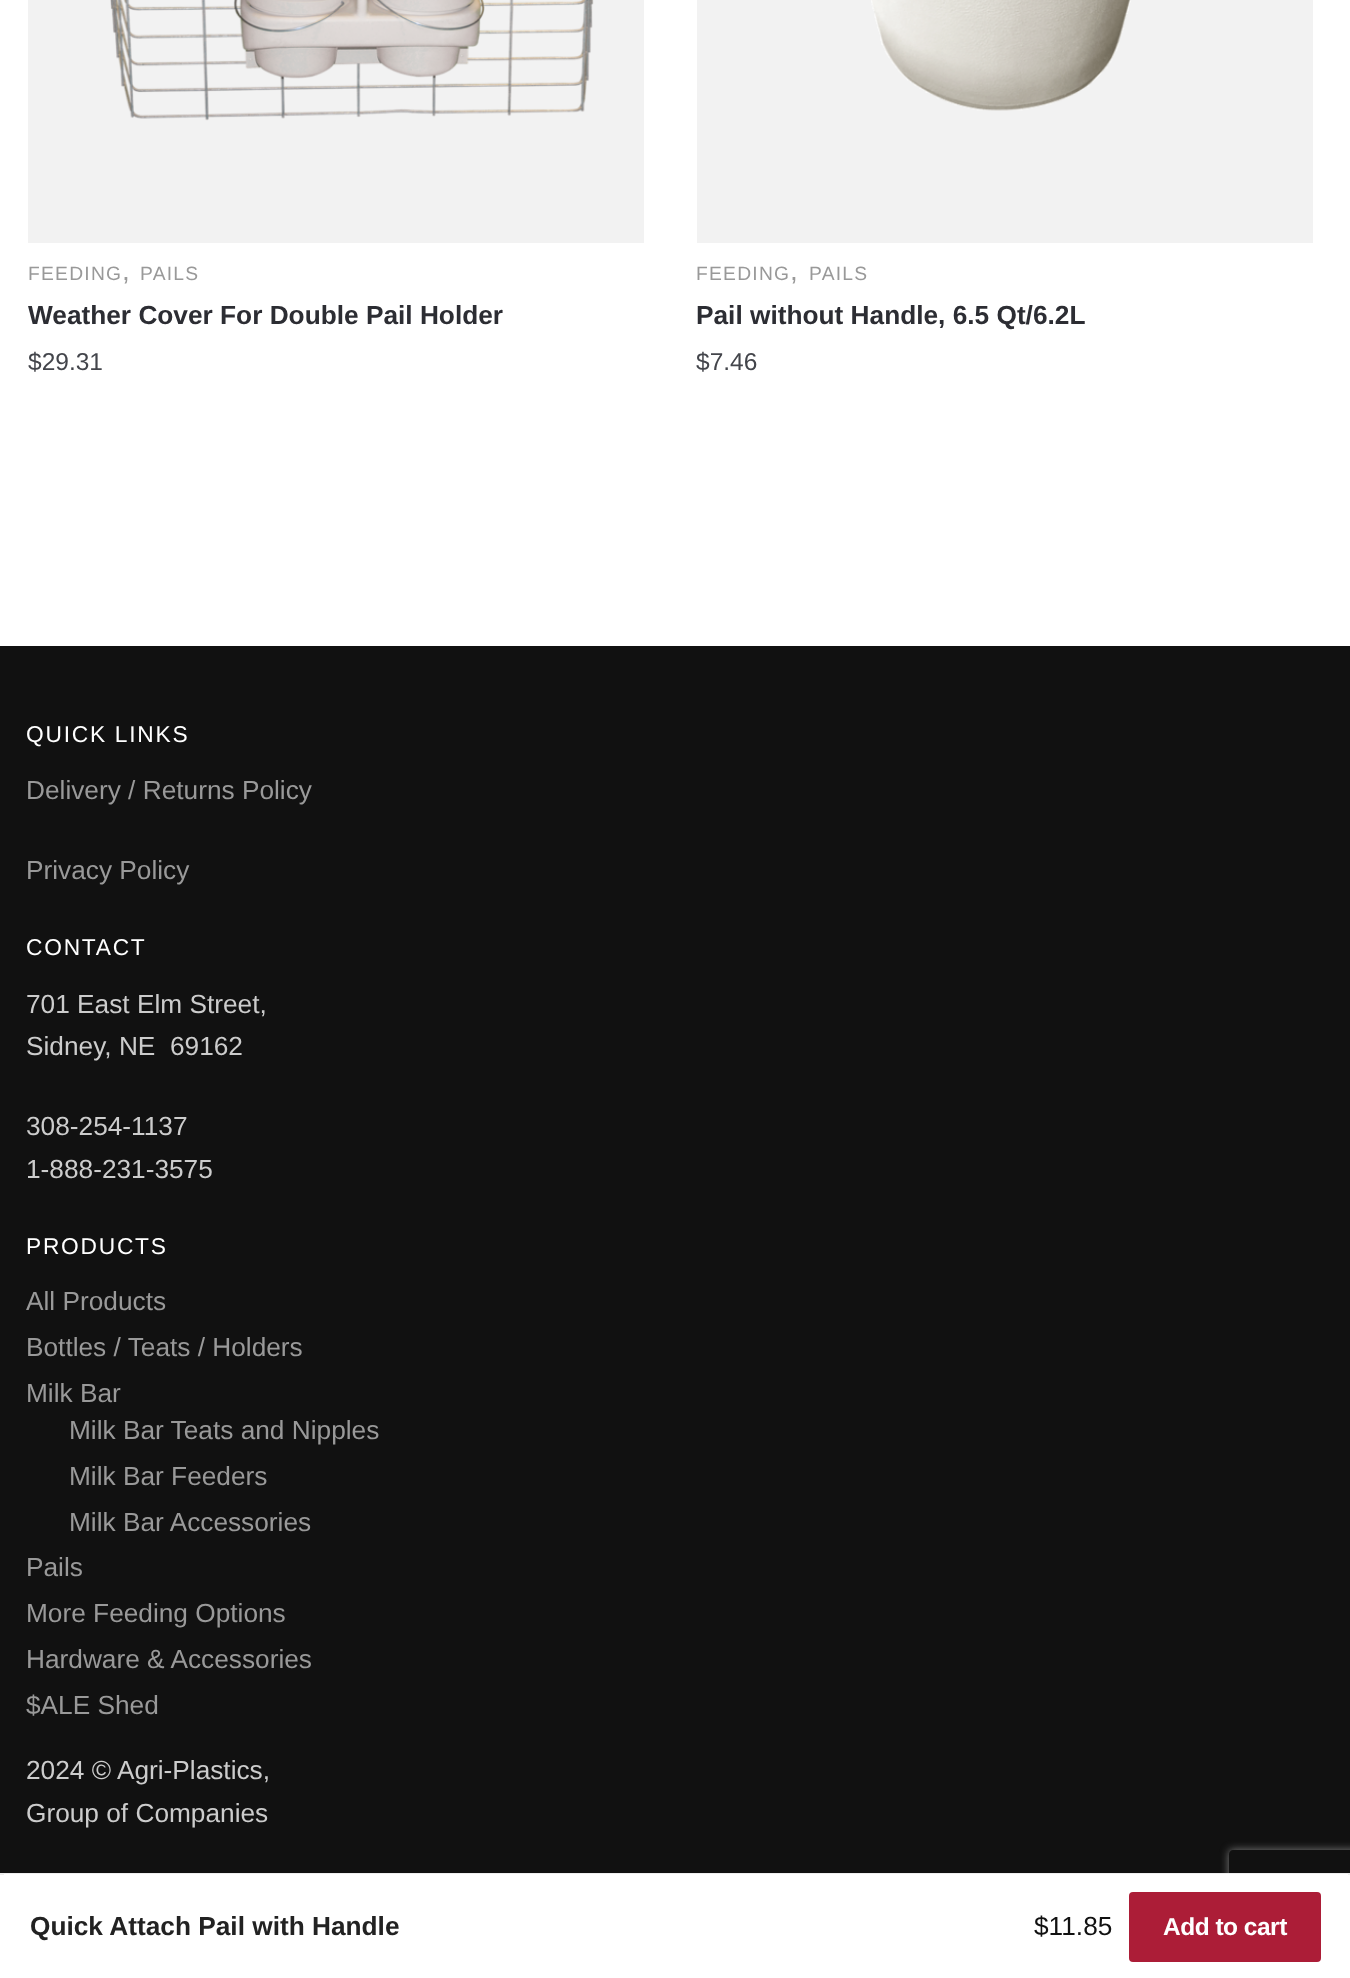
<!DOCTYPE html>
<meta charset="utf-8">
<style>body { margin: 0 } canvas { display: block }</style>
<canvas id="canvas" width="1350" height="1978"></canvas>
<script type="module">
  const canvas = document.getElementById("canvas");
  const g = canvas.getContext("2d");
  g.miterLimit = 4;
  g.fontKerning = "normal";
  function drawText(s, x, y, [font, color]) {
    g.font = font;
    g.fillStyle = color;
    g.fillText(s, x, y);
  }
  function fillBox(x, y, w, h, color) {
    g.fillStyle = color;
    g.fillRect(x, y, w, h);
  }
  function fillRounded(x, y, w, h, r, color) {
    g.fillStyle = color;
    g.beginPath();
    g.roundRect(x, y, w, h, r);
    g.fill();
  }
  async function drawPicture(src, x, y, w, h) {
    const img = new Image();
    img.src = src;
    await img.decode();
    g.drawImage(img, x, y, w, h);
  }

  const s1 = ["19.25px Liberation Sans", "#999999"];
  const s2 = ["28px Liberation Sans", "#999999"];
  const s3 = ["bold 26.25px Liberation Sans", "#2C2D33"];
  const s4 = ["24.5px Liberation Sans", "#43454B"];
  const s5 = ["bold 26.25px Liberation Sans", "#222222"];
  const s6 = ["26.25px Liberation Sans", "#111111"];
  const s7 = ["bold 24.5px Liberation Sans", "#FFFFFF"];
  const s8 = ["22.75px Liberation Sans", "#FFFFFF"];
  const s9 = ["26.25px Liberation Sans", "#999999"];
  const s10 = ["26.25px Liberation Sans", "#CCCCCC"];

  fillBox(0, 0, 1350, 1978, "#111111");
  fillBox(0, 0, 1350, 646, "#FFFFFF");
  fillBox(28, 0, 616, 243, "#F2F2F2");
  await drawPicture("pic1.png", 110, 0, 484, 121);
  g.letterSpacing = "1.25px";
  drawText("FEEDING", 28, 280, s1);
  drawText(",", 122, 280, s2);
  drawText("PAILS", 140, 280, s1);
  g.letterSpacing = "0px";
  drawText("Weather Cover For Double Pail Holder", 28, 324, s3);
  drawText("$29.31", 28, 370, s4);
  fillBox(697, 0, 616, 243, "#F2F2F2");
  await drawPicture("pic2.png", 871, 0, 260, 111);
  g.letterSpacing = "1.25px";
  drawText("FEEDING", 696, 280, s1);
  drawText(",", 790, 280, s2);
  drawText("PAILS", 809, 280, s1);
  g.letterSpacing = "0px";
  drawText("Pail without Handle, 6.5 Qt/6.2L", 696, 324, s3);
  drawText("$7.46", 696, 370, s4);
  g.save();
  g.beginPath();
  g.moveTo(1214, 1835);
  g.lineTo(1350, 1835);
  g.lineTo(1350, 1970);
  g.lineTo(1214, 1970);
  g.closePath();
  g.moveTo(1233, 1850);
  g.lineTo(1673, 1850);
  g.bezierCurveTo(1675, 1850, 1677, 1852, 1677, 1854);
  g.lineTo(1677, 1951);
  g.bezierCurveTo(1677, 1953, 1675, 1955, 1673, 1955);
  g.lineTo(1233, 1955);
  g.bezierCurveTo(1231, 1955, 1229, 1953, 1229, 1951);
  g.lineTo(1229, 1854);
  g.bezierCurveTo(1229, 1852, 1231, 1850, 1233, 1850);
  g.closePath();
  g.clip("evenodd");
  g.fillStyle = "#808080";
  g.filter = "blur(4.5px)";
  g.beginPath();
  g.roundRect(1229, 1850, 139, 105, 4);
  g.fill();
  g.filter = "none";
  g.restore();
  fillBox(0, 1875, 1350, 103, "#FFFFFF");
  fillBox(0, 1873, 1350, 2, "#EEEEEE");
  fillBox(4, 1874, 1344, 1, "#FFFFFF");
  drawText("Quick Attach Pail with Handle", 30, 1935, s5);
  drawText("$11.85", 1034, 1935, s6);
  fillRounded(1129, 1892, 192, 70, 4, "#AC1D37");
  g.letterSpacing = "-0.5px";
  drawText("Add to cart", 1163, 1935, s7);
  g.letterSpacing = "1.75px";
  drawText("QUICK LINKS", 26, 742, s8);
  g.letterSpacing = "0px";
  drawText("Delivery / Returns Policy", 26, 799, s9);
  drawText("Privacy Policy", 26, 879, s9);
  g.letterSpacing = "1.75px";
  drawText("CONTACT", 26, 955, s8);
  g.letterSpacing = "0px";
  drawText("701 East Elm Street,", 26, 1013, s10);
  drawText("Sidney, NE  69162", 26, 1055, s10);
  drawText("308-254-1137", 26, 1135, s10);
  drawText("1-888-231-3575", 26, 1178, s10);
  g.letterSpacing = "1.75px";
  drawText("PRODUCTS", 26, 1254, s8);
  g.letterSpacing = "0px";
  drawText("All Products", 26, 1310, s9);
  drawText("Bottles / Teats / Holders", 26, 1356, s9);
  drawText("Milk Bar", 26, 1402, s9);
  drawText("Milk Bar Teats and Nipples", 69, 1439, s9);
  drawText("Milk Bar Feeders", 69, 1485, s9);
  drawText("Milk Bar Accessories", 69, 1531, s9);
  drawText("Pails", 26, 1576, s9);
  drawText("More Feeding Options", 26, 1622, s9);
  drawText("Hardware & Accessories", 26, 1668, s9);
  drawText("$ALE Shed", 26, 1714, s9);
  drawText("2024 © Agri-Plastics,", 26, 1779, s10);
  drawText("Group of Companies", 26, 1822, s10);
</script>
